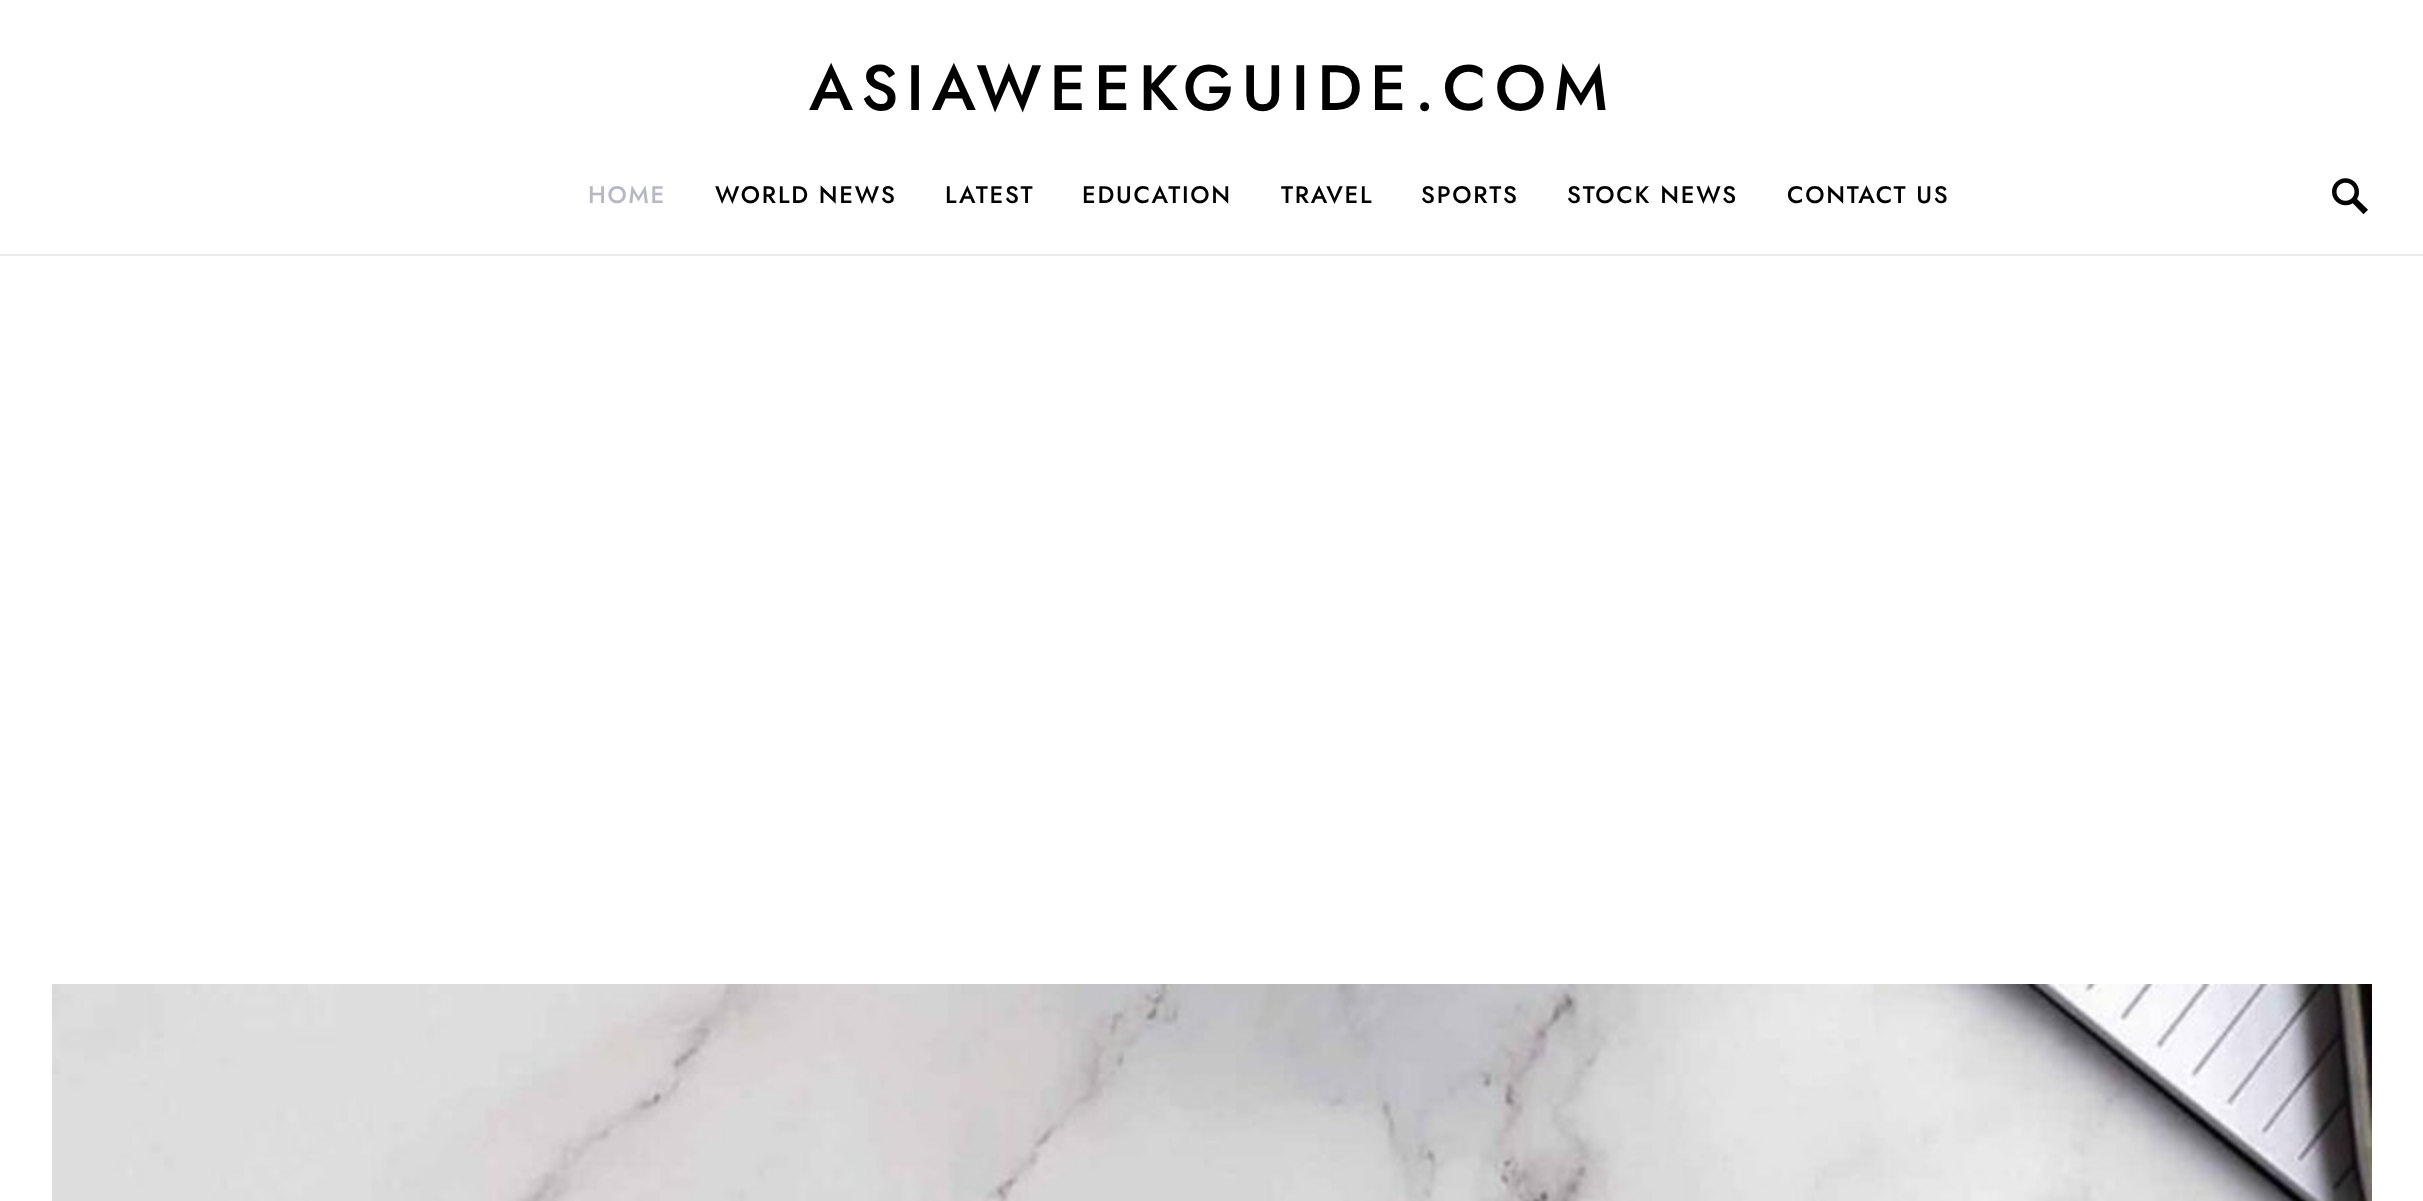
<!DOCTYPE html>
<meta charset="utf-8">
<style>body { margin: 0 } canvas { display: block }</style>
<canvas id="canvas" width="2423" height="1201"></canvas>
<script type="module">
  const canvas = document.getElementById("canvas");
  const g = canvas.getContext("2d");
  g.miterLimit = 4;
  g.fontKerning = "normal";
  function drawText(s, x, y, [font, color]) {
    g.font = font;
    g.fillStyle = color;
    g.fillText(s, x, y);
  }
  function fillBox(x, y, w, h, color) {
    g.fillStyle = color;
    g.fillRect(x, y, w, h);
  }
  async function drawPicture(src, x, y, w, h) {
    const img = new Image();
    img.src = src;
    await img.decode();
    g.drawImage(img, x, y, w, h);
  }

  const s1 = ["500 64px Jost", "#000000"];
  const s2 = ["500 24px Jost", "#B7B9C2"];
  const s3 = ["500 24px Jost", "#000000"];

  fillBox(0, 0, 2423, 1201, "#FFFFFF");
  g.letterSpacing = "8px";
  drawText("ASIAWEEKGUIDE.COM", 809, 110, s1);
  fillBox(0, 254, 2423, 2, "#E9ECEF");
  g.letterSpacing = "1.75px";
  drawText("HOME", 588, 203, s2);
  drawText("WORLD NEWS", 715, 203, s3);
  drawText("LATEST", 945, 203, s3);
  drawText("EDUCATION", 1082, 203, s3);
  drawText("TRAVEL", 1281, 203, s3);
  drawText("SPORTS", 1421, 203, s3);
  drawText("STOCK NEWS", 1567, 203, s3);
  drawText("CONTACT US", 1787, 203, s3);
  await drawPicture("pic1.png", 2332, 178, 36, 37);
  await drawPicture("pic2.png", 52, 984, 2320, 217);
</script>
